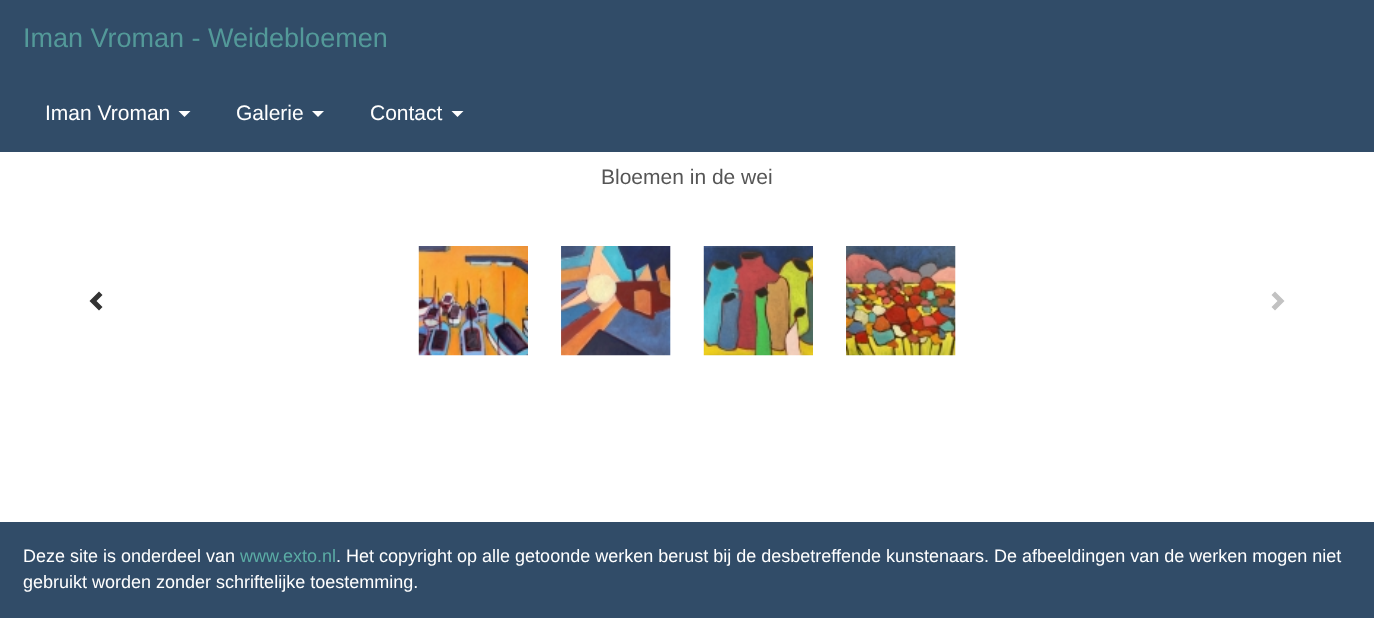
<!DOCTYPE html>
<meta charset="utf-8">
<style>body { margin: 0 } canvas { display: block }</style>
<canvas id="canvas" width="1374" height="618"></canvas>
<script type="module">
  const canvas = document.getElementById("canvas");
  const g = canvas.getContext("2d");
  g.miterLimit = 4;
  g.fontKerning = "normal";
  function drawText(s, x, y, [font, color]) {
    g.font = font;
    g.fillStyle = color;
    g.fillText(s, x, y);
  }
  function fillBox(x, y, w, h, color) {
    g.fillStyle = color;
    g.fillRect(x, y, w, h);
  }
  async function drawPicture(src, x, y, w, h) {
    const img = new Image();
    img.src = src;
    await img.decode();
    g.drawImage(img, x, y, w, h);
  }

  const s1 = ["27px Liberation Sans", "#539999"];
  const s2 = ["21px Liberation Sans", "#FFFFFF"];
  const s3 = ["21px Liberation Sans", "#555555"];
  const s4 = ["18px Liberation Sans", "#FFFFFF"];
  const s5 = ["18px Liberation Sans", "#5BACA5"];

  fillBox(0, 0, 1374, 618, "#314C68");
  drawText("Iman Vroman - Weidebloemen", 23, 47, s1);
  drawText("Iman Vroman", 45, 120, s2);
  g.beginPath();
  g.moveTo(178.5, 111);
  g.lineTo(190.5, 111);
  g.lineTo(184.5, 117);
  g.closePath();
  g.fill();
  drawText("Galerie", 236, 120, s2);
  g.beginPath();
  g.moveTo(312, 111);
  g.lineTo(324, 111);
  g.lineTo(318, 117);
  g.closePath();
  g.fill();
  drawText("Contact", 370, 120, s2);
  g.beginPath();
  g.moveTo(451.5, 111);
  g.lineTo(463.5, 111);
  g.lineTo(457.5, 117);
  g.closePath();
  g.fill();
  fillBox(0, 152, 1374, 370, "#FFFFFF");
  drawText("Bloemen in de wei", 601, 184, s3);
  g.fillStyle = "#333333";
  g.beginPath();
  g.moveTo(102.5, 295);
  g.lineTo(96.5, 301);
  g.lineTo(102.5, 307);
  g.lineTo(99, 310.5);
  g.lineTo(89.5, 301);
  g.lineTo(99, 291.5);
  g.closePath();
  g.fill();
  await drawPicture("pic1.png", 418, 246, 110, 110);
  await drawPicture("pic2.png", 561, 246, 110, 110);
  await drawPicture("pic3.png", 703, 246, 110, 110);
  await drawPicture("pic4.png", 846, 246, 110, 110);
  g.fillStyle = "#C2C2C2";
  g.beginPath();
  g.moveTo(1284.5, 301);
  g.lineTo(1275, 310.5);
  g.lineTo(1271.5, 307);
  g.lineTo(1277.5, 301);
  g.lineTo(1271.5, 295);
  g.lineTo(1275, 291.5);
  g.closePath();
  g.fill();
  drawText("Deze site is onderdeel van", 23, 562, s4);
  drawText("www.exto.nl", 240, 562, s5);
  drawText(". Het copyright op alle getoonde werken berust bij de desbetreffende kunstenaars. De afbeeldingen van de werken mogen niet", 336, 562, s4);
  drawText("gebruikt worden zonder schriftelijke toestemming.", 23, 588, s4);
</script>
